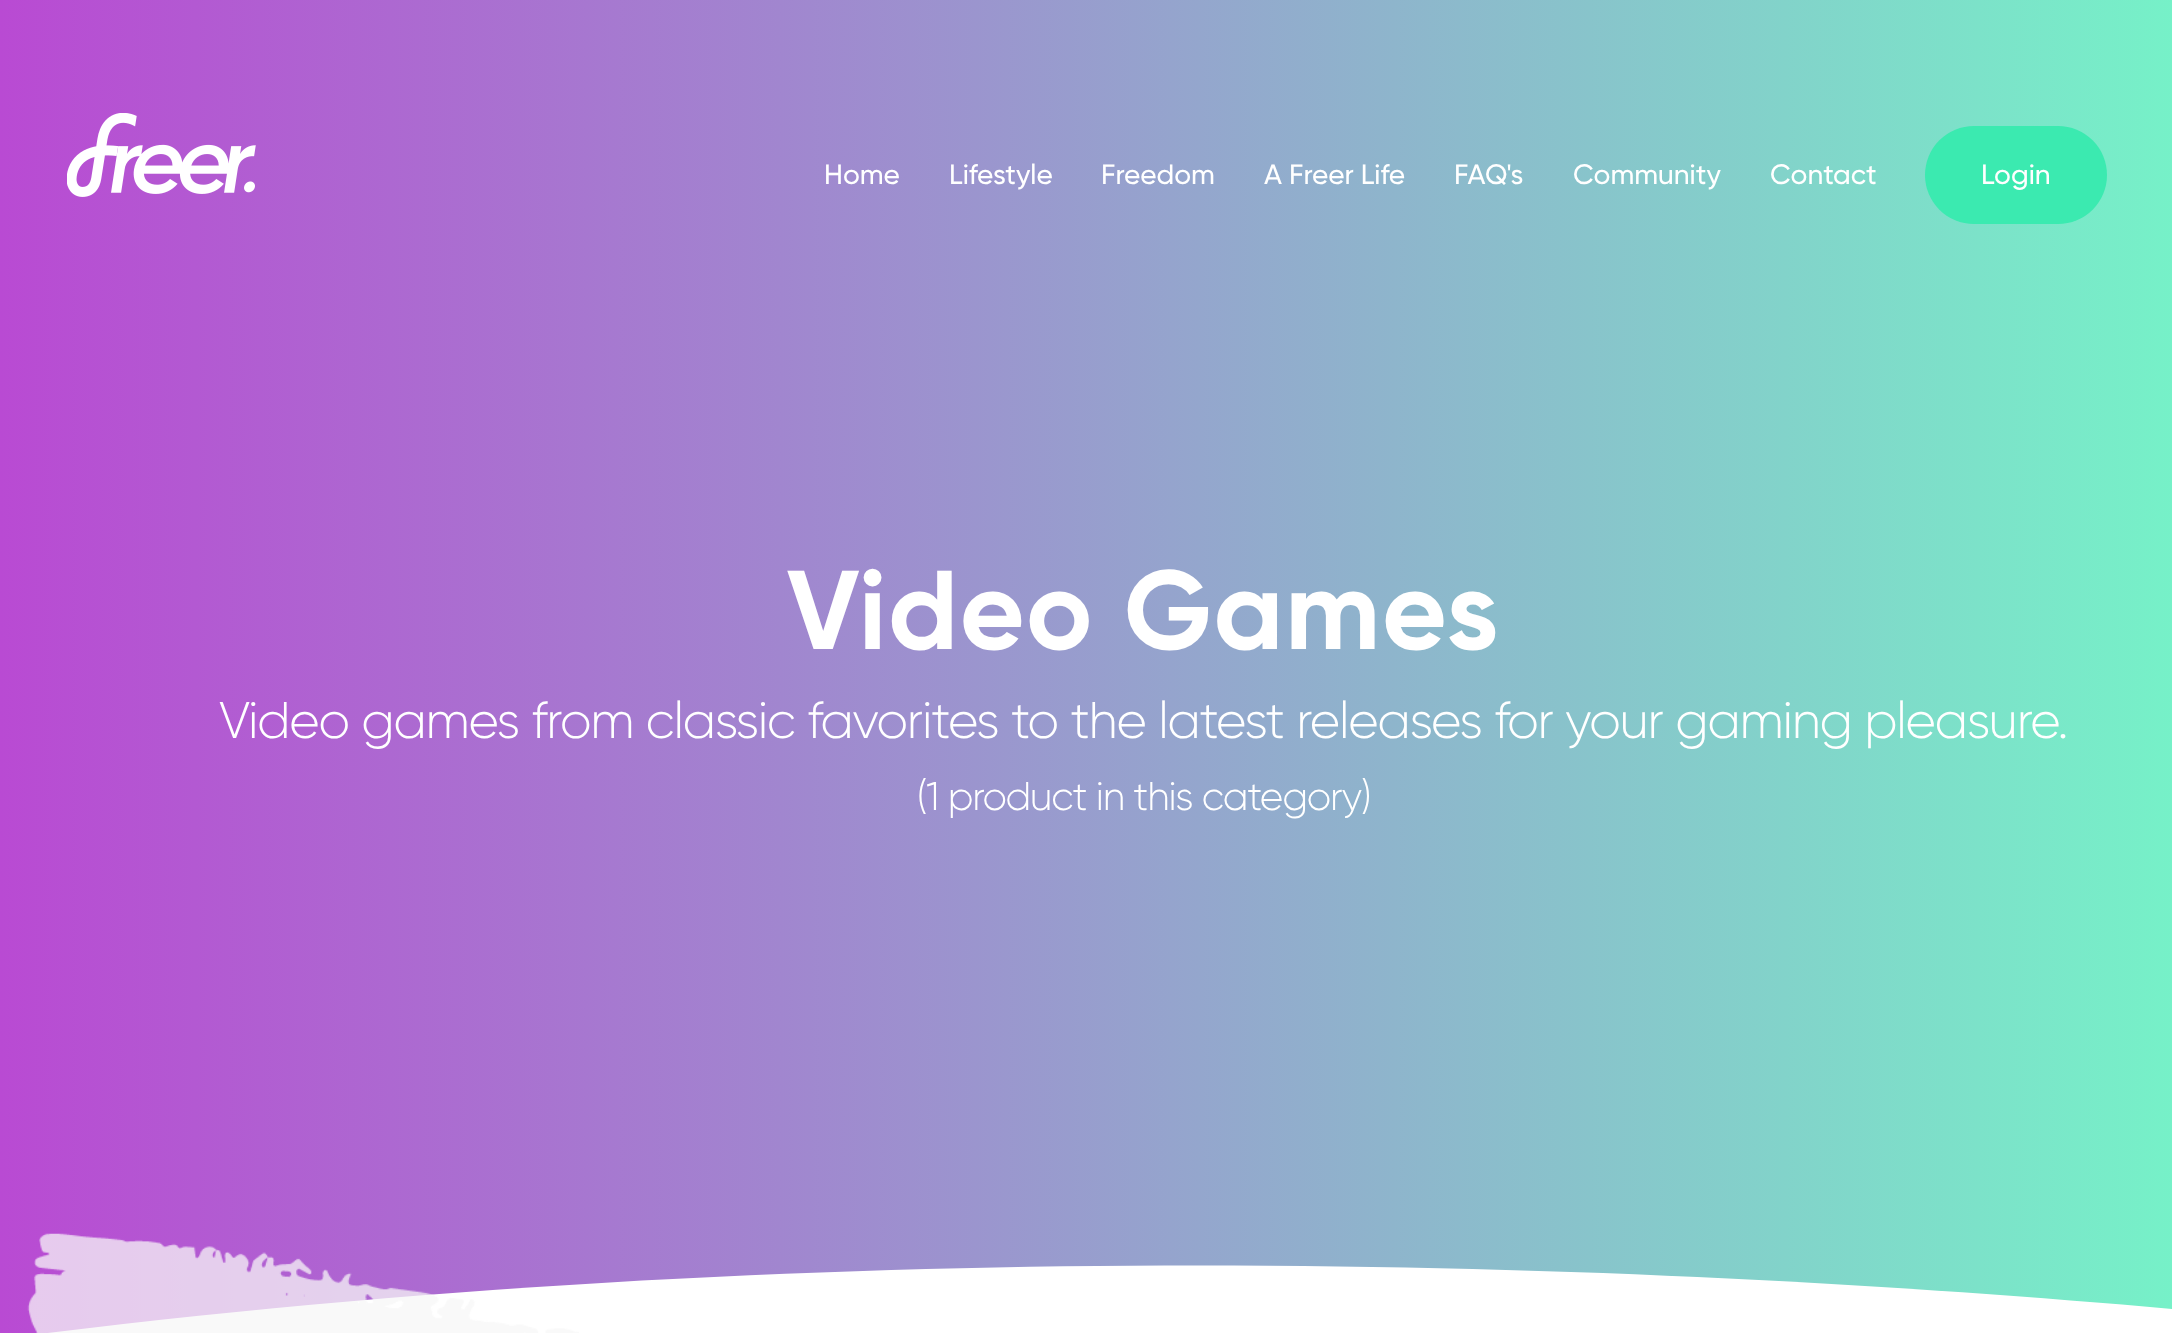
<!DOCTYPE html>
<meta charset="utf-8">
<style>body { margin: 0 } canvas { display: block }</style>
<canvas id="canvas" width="2172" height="1333"></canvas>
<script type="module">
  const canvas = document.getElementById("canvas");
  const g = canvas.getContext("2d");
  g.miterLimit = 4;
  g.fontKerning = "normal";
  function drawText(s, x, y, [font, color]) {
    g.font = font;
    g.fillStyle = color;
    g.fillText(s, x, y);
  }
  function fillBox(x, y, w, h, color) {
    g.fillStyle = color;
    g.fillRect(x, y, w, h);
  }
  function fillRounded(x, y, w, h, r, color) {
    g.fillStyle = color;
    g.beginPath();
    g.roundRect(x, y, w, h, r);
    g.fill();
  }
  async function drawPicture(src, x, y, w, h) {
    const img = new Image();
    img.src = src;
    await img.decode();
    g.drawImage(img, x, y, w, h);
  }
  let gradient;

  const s1 = ["500 28px Gilroy", "#FFFFFF"];
  const s2 = ["bold 111.75px Gilroy", "#FFFFFF"];
  const s3 = ["300 51.55px Gilroy", "#FFFFFF"];
  const s4 = ["300 39.9px Gilroy", "#FFFFFF"];

  fillBox(0, 0, 2172, 1333, "#FFFFFF");
  gradient = g.createLinearGradient(0, 761, 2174, 761);
  gradient.addColorStop(0, "#B94AD3");
  gradient.addColorStop(1, "#76F1C8");
  g.fillStyle = gradient;
  g.fillRect(0, 0, 2172, 1333);
  await drawPicture("pic1.png", 67, 113, 189, 84);
  drawText("Home", 824, 184, s1);
  drawText("Lifestyle", 949, 184, s1);
  drawText("Freedom", 1101, 184, s1);
  drawText("A Freer Life", 1264, 184, s1);
  drawText("FAQ's", 1454, 184, s1);
  drawText("Community", 1573, 184, s1);
  drawText("Contact", 1770, 184, s1);
  fillRounded(1925, 126, 182, 98, 49, "#3BEAB0");
  drawText("Login", 1981, 184, s1);
  g.letterSpacing = "1.75px";
  drawText("Video Games", 787, 649, s2);
  g.letterSpacing = "-1.22px";
  drawText("Video games from classic favorites to the latest releases for your gaming pleasure.", 219, 738, s3);
  drawText("(1 product in this category)", 917, 810, s4);
  g.beginPath();
  g.moveTo(0, 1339);
  g.lineTo(0, 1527);
  g.lineTo(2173, 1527);
  g.lineTo(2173, 1309);
  g.bezierCurveTo(1655, 1263, 854, 1229, 0, 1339);
  g.fill();
  await drawPicture("pic2.png", 27, 1233, 552, 100);
</script>
